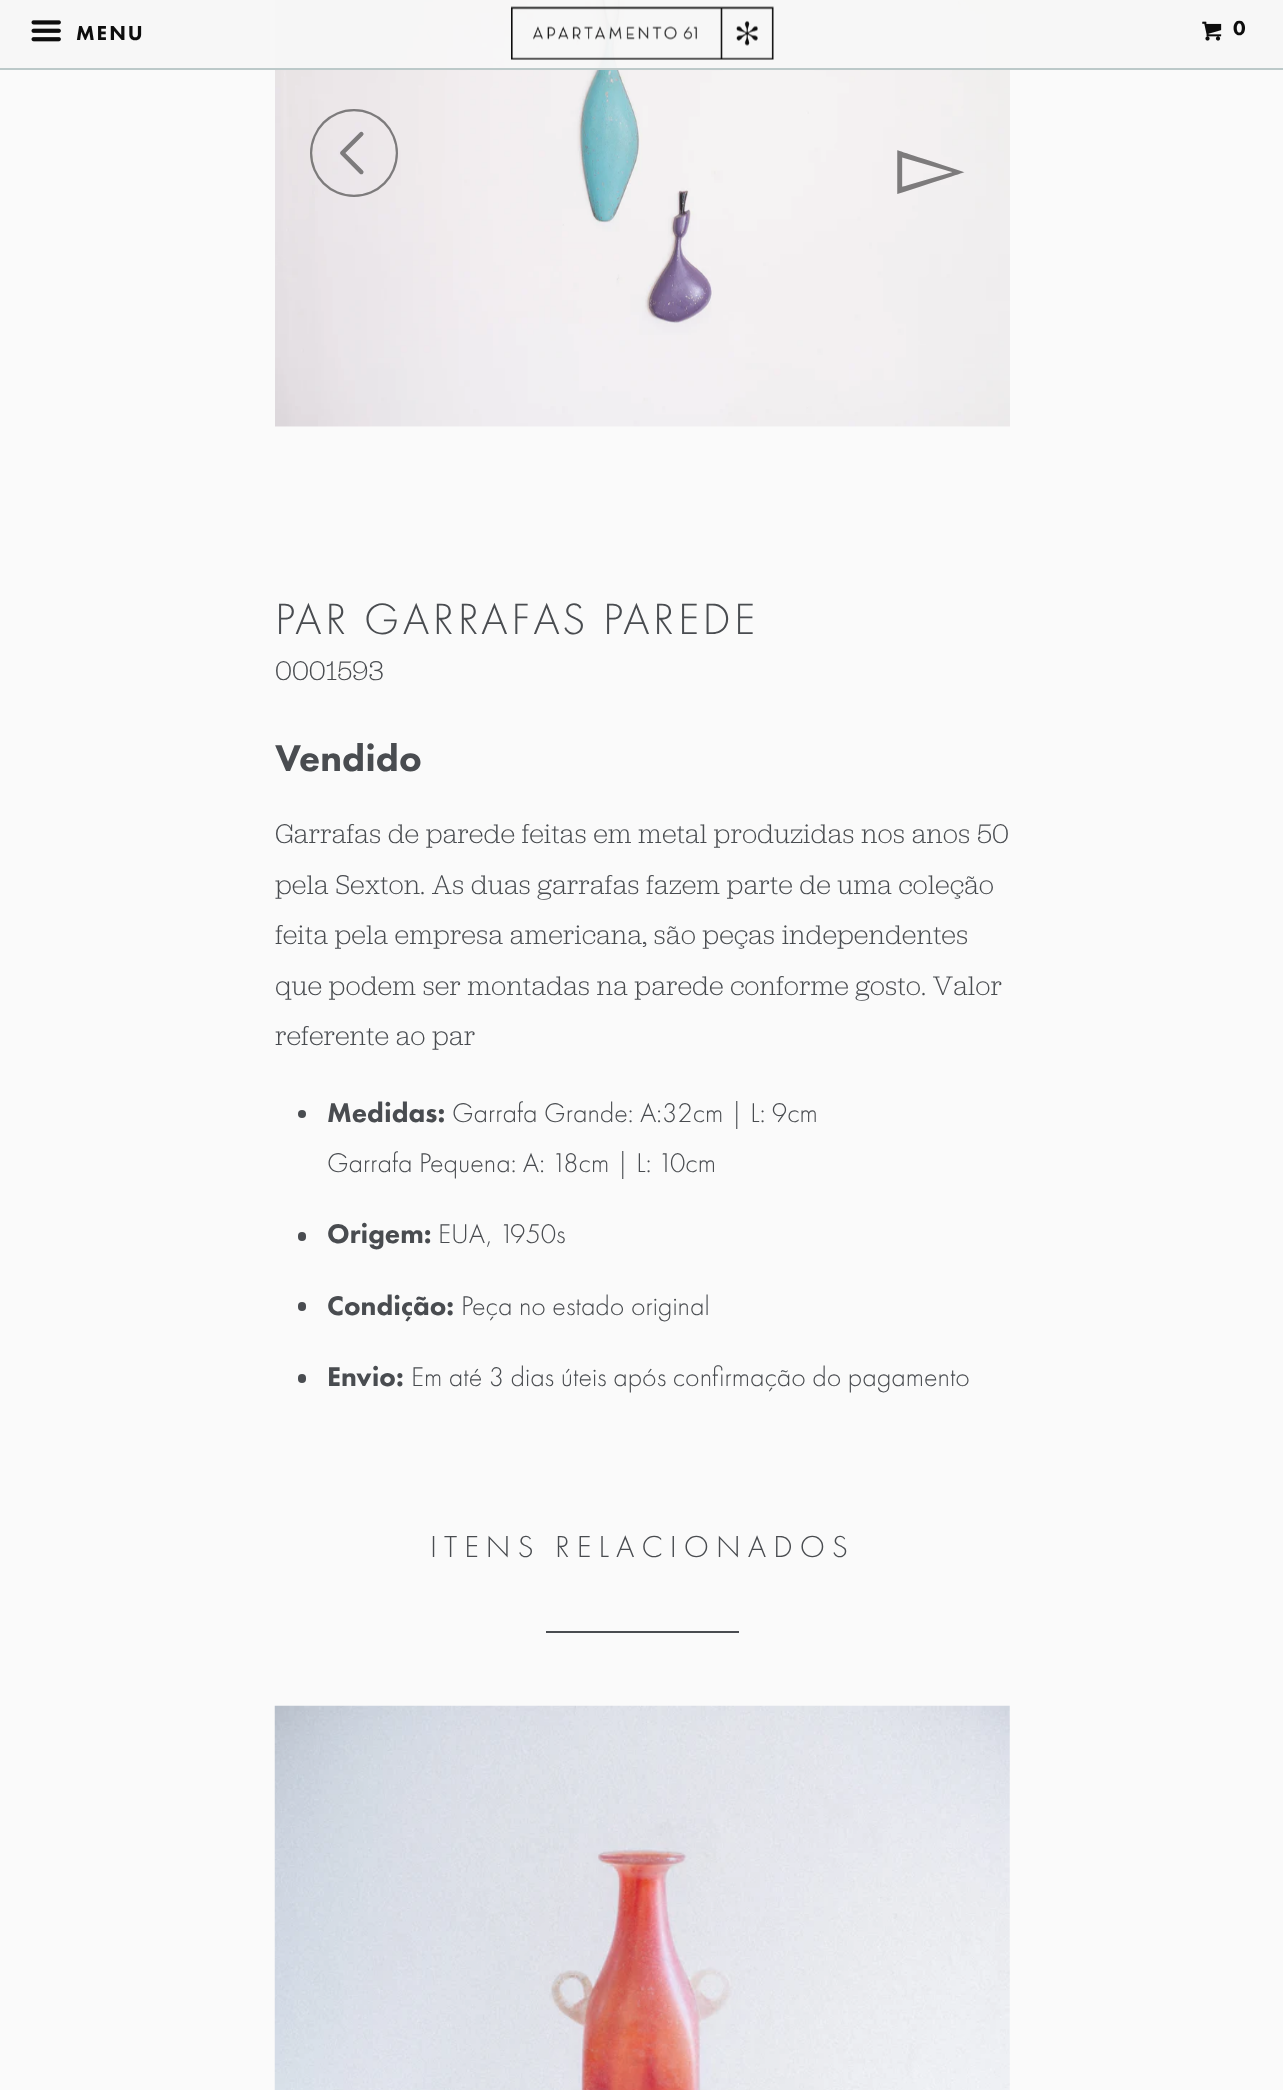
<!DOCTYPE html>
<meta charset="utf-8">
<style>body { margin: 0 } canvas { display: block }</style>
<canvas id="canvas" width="1283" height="2090"></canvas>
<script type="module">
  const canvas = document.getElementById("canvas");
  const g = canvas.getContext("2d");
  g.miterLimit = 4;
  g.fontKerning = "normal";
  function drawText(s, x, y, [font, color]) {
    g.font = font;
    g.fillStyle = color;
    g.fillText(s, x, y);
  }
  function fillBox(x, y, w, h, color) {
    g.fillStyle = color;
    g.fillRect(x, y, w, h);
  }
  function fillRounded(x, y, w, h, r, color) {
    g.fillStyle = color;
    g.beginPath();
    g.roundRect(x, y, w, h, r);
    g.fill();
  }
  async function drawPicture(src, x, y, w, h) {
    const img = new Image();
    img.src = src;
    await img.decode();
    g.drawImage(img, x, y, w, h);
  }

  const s1 = ["900 21px Futura PT", "#0D0D0D"];
  const s2 = ["88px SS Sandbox", "#7D7B7C"];
  const s3 = ["88px DejaVu Sans", "#7D7B7C"];
  const s4 = ["300 45.5px Futura PT", "#494C50"];
  const s5 = ["300 28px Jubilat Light", "#494C50"];
  const s6 = ["900 38.5px Futura PT", "#494C50"];
  const s7 = ["900 28px Futura PT", "#494C50"];
  const s8 = ["300 28px Futura PT", "#494C50"];
  const s9 = ["300 31.5px Futura PT", "#494C50"];

  fillBox(0, 0, 1283, 2090, "#FAFAFA");
  await drawPicture("pic4.png", 275, 0, 735, 427);
  fillBox(0, 0, 1283, 70, "rgba(247, 247, 247, 0.95)");
  fillBox(0, 68, 1283, 2, "rgba(184, 198, 198, 0.95)");
  await drawPicture("pic1.png", 31, 20, 30, 22);
  g.letterSpacing = "2px";
  drawText("MENU", 76, 40, s1);
  await drawPicture("pic2.png", 511, 6, 263, 54);
  await drawPicture("pic3.png", 1202, 21, 20, 20);
  drawText("0", 1233, 35, s1);
  g.letterSpacing = "0px";
  drawText("◅", 310, 197, s2);
  drawText("▻", 897, 195, s3);
  g.letterSpacing = "3.5px";
  drawText("PAR GARRAFAS PAREDE", 275, 634, s4);
  g.letterSpacing = "0px";
  drawText("0001593", 275, 680, s5);
  drawText("Vendido", 275, 771, s6);
  drawText("Garrafas de parede feitas em metal produzidas nos anos 50", 275, 843, s5);
  drawText("pela Sexton. As duas garrafas fazem parte de uma coleção", 275, 894, s5);
  drawText("feita pela empresa americana, são peças independentes", 275, 944, s5);
  drawText("que podem ser montadas na parede conforme gosto. Valor", 275, 995, s5);
  drawText("referente ao par", 275, 1045, s5);
  g.beginPath();
  g.arc(302, 1114, 4, 0, Math.PI * 2);
  g.fill();
  drawText("Medidas:", 327, 1122, s7);
  drawText("Garrafa Grande: A:32cm | L: 9cm", 452, 1122, s8);
  drawText("Garrafa Pequena: A: 18cm | L: 10cm", 327, 1172, s8);
  fillRounded(298, 1232, 8, 9, 4, "#494C50");
  drawText("Origem:", 327, 1243, s7);
  drawText("EUA, 1950s", 438, 1243, s8);
  fillRounded(298, 1302, 8, 9, 4, "#494C50");
  drawText("Condição:", 327, 1315, s7);
  drawText("Peça no estado original", 461, 1315, s8);
  fillRounded(298, 1374, 8, 9, 4, "#494C50");
  drawText("Envio:", 327, 1386, s7);
  drawText("Em até 3 dias úteis após confirmação do pagamento", 411, 1386, s8);
  g.letterSpacing = "7px";
  drawText("ITENS RELACIONADOS", 430, 1557, s9);
  fillBox(546, 1631, 193, 2, "#494C50");
  await drawPicture("pic5.png", 274, 1705, 736, 385);
</script>
